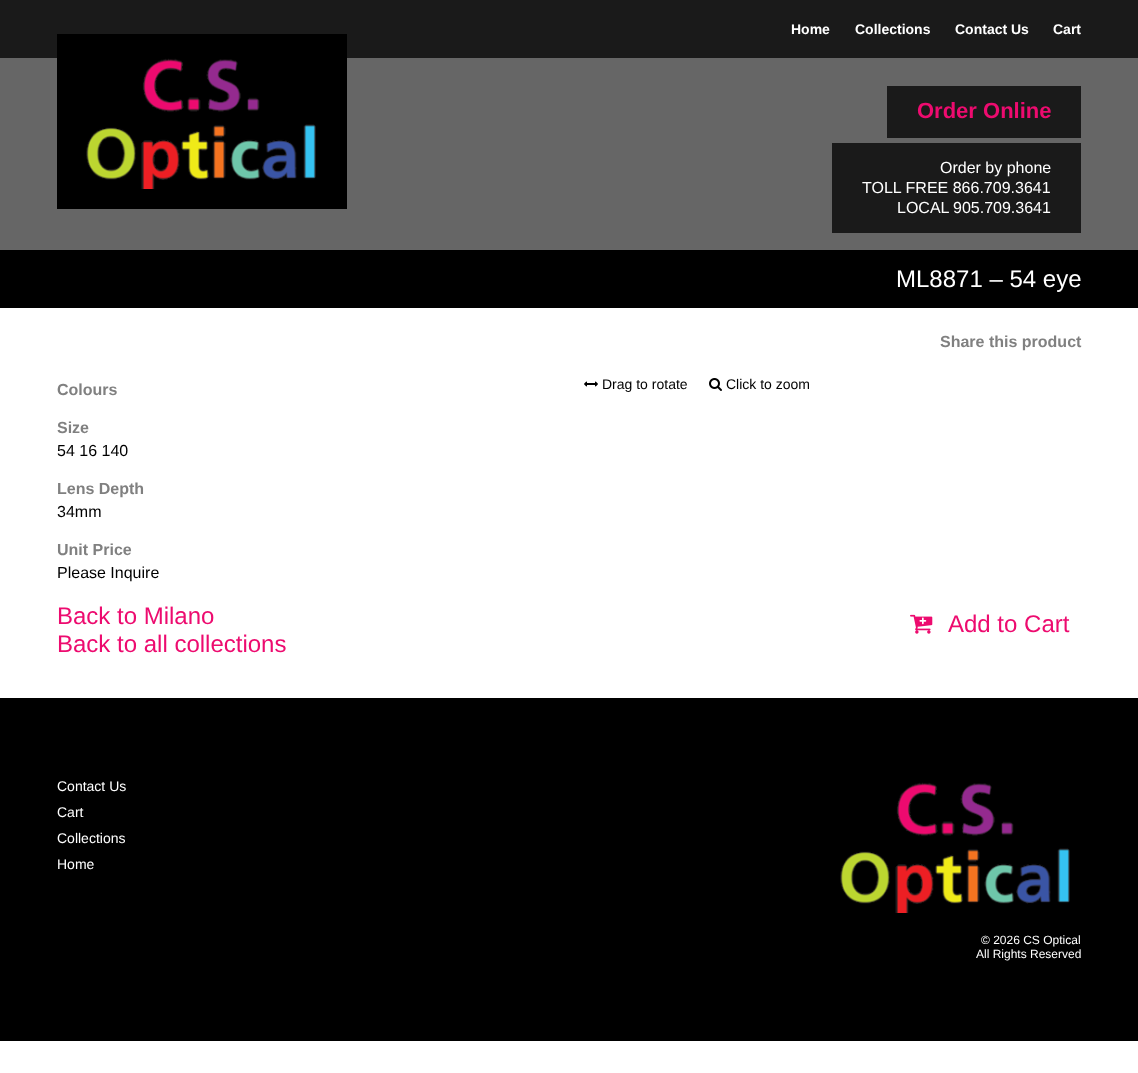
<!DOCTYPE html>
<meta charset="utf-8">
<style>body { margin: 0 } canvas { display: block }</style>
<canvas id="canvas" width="1138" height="1073"></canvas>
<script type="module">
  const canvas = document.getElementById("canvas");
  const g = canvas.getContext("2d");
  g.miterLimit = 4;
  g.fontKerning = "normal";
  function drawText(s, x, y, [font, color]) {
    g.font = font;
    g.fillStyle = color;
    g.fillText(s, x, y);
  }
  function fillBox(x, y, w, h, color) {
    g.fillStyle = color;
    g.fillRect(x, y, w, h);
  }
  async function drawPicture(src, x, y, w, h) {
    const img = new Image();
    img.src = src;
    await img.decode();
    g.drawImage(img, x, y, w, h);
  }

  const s1 = ["bold 14px Arimo", "#FFFFFF"];
  const s2 = ["bold 22px Arimo", "#ED0B6F"];
  const s3 = ["16px Arimo", "#FFFFFF"];
  const s4 = ["24px Arimo", "#FFFFFF"];
  const s5 = ["bold 16px Arimo", "#808080"];
  const s6 = ["16px Arimo", "#000000"];
  const s7 = ["14px Arimo", "#000000"];
  const s8 = ["24px Arimo", "#ED0B6F"];
  const s9 = ["24px Liberation Sans", "#ED0B6F"];
  const s10 = ["14px Arimo", "#FFFFFF"];
  const s11 = ["12px Arimo", "#FFFFFF"];

  fillBox(0, 0, 1138, 1073, "#FFFFFF");
  fillBox(0, 0, 1138, 58, "#1A1A1A");
  drawText("Home", 791, 34, s1);
  drawText("Collections", 855, 34, s1);
  drawText("Contact Us", 955, 34, s1);
  drawText("Cart", 1053, 34, s1);
  fillBox(0, 58, 1138, 192, "#666666");
  fillBox(57, 34, 290, 175, "#000000");
  await drawPicture("pic1.png", 86, 58, 230, 131);
  fillBox(887, 86, 194, 52, "#1A1A1A");
  drawText("Order Online", 917, 118, s2);
  fillBox(832, 143, 249, 90, "#1A1A1A");
  drawText("Order by phone", 940, 173, s3);
  drawText("TOLL FREE 866.709.3641", 862, 193, s3);
  drawText("LOCAL", 897, 213, s3);
  drawText("905.709.3641", 953, 213, s3);
  fillBox(0, 250, 1138, 58, "#000000");
  drawText("ML8871 – 54 eye", 896, 287, s4);
  drawText("Share this product", 940, 347, s5);
  drawText("Colours", 57, 395, s5);
  drawText("Size", 57, 433, s5);
  drawText("54 16 140", 57, 456, s6);
  drawText("Lens Depth", 57, 494, s5);
  drawText("34mm", 57, 517, s6);
  drawText("Unit Price", 57, 555, s5);
  drawText("Please Inquire", 57, 578, s6);
  await drawPicture("pic2.png", 584, 381, 14, 6);
  drawText("Drag to rotate", 602, 389, s7);
  await drawPicture("pic3.png", 709, 378, 13, 13);
  drawText("Click to zoom", 726, 389, s7);
  drawText("Back to Milano", 57, 624, s8);
  drawText("Back to all collections", 57, 652, s8);
  await drawPicture("pic4.png", 910, 614, 23, 20);
  drawText("Add to Cart", 948, 632, s9);
  fillBox(0, 698, 1138, 343, "#000000");
  drawText("Contact Us", 57, 791, s10);
  drawText("Cart", 57, 817, s10);
  drawText("Collections", 57, 843, s10);
  drawText("Home", 57, 869, s10);
  await drawPicture("pic1.png", 840, 782, 230, 131);
  drawText("© 2026 CS Optical", 981, 944, s11);
  drawText("All Rights Reserved", 976, 958, s11);
</script>
